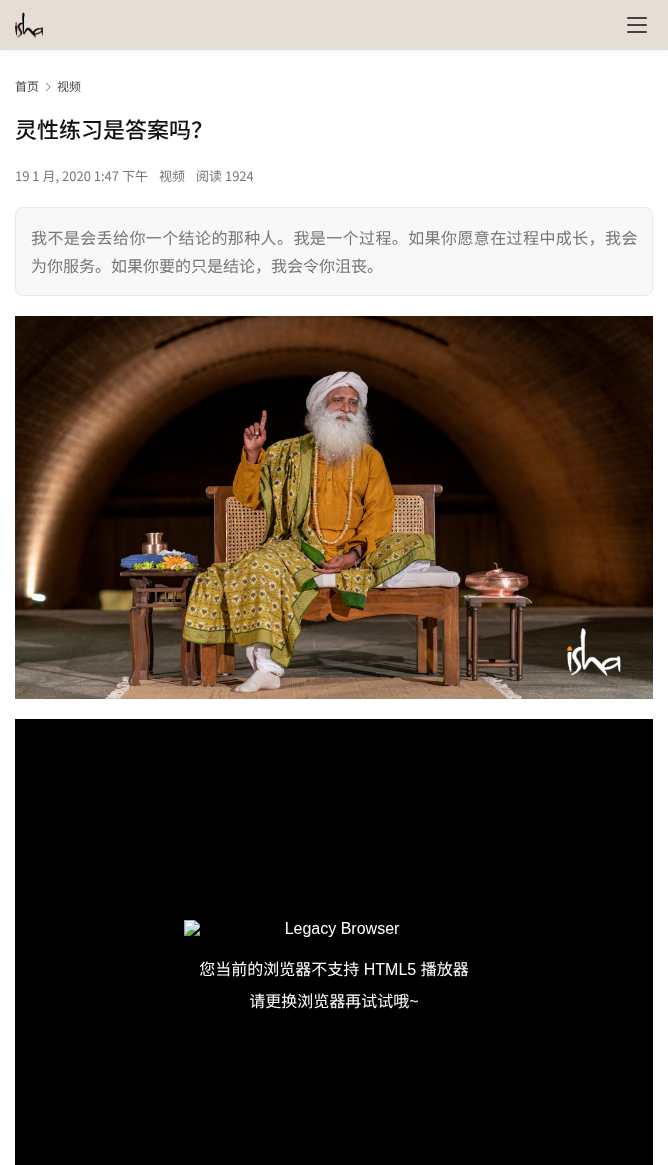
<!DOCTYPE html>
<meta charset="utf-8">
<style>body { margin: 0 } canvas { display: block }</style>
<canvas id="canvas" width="668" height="1165"></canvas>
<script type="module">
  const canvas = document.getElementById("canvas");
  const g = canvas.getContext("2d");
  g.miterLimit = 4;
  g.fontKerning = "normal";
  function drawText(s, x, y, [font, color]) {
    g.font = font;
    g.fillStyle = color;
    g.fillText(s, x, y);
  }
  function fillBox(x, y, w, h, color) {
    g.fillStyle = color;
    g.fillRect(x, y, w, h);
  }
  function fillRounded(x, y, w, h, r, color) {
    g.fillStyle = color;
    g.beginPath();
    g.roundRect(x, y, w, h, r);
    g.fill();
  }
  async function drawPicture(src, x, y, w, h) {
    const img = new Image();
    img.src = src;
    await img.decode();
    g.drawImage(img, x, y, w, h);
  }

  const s1 = ["12px Noto Sans CJK SC", "#484848"];
  const s2 = ["500 22px Noto Sans CJK SC", "#111111"];
  const s3 = ["13px Noto Sans CJK SC", "#767676"];
  const s4 = ["16px Noto Sans CJK SC", "#767676"];

  fillBox(0, 0, 668, 1165, "#FFFFFF");
  g.fillStyle = "rgba(26, 26, 26, 0.06)";
  g.filter = "blur(1.5px)";
  g.beginPath();
  g.rect(-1, -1, 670, 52);
  g.fill();
  g.filter = "none";
  fillBox(0, 0, 668, 50, "#E4DED4");
  await drawPicture("pic1.png", 15, 12, 28, 26);
  fillRounded(627, 17, 20, 2, 1, "#42413F");
  fillRounded(627, 24, 20, 2, 1, "#42413F");
  fillRounded(627, 31, 20, 2, 1, "#42413F");
  drawText("首页", 15, 91, s1);
  await drawPicture("pic2.png", 46, 82, 5, 10);
  drawText("视频", 57, 91, s1);
  drawText("灵性练习是答案吗？", 15, 138, s2);
  drawText("19 1 月, 2020 1:47 下午", 15, 181, s3);
  drawText("视频", 159, 181, s3);
  drawText("阅读 1924", 196, 181, s3);
  fillRounded(15, 207, 638, 89, 8, "#F8F8F8");
  g.beginPath();
  g.roundRect(15.5, 207.5, 637, 88, 7.5);
  g.strokeStyle = "rgba(26, 26, 26, 0.07)";
  g.stroke();
  g.letterSpacing = "0.4px";
  drawText("我不是会丢给你一个结论的那种人。我是一个过程。如果你愿意在过程中成长，我会", 31, 244, s4);
  g.letterSpacing = "0px";
  drawText("为你服务。如果你要的只是结论，我会令你沮丧。", 31, 272, s4);
  await drawPicture("pic3.png", 15, 316, 638, 383);
  await drawPicture("pic4.png", 15, 719, 638, 446);
</script>
